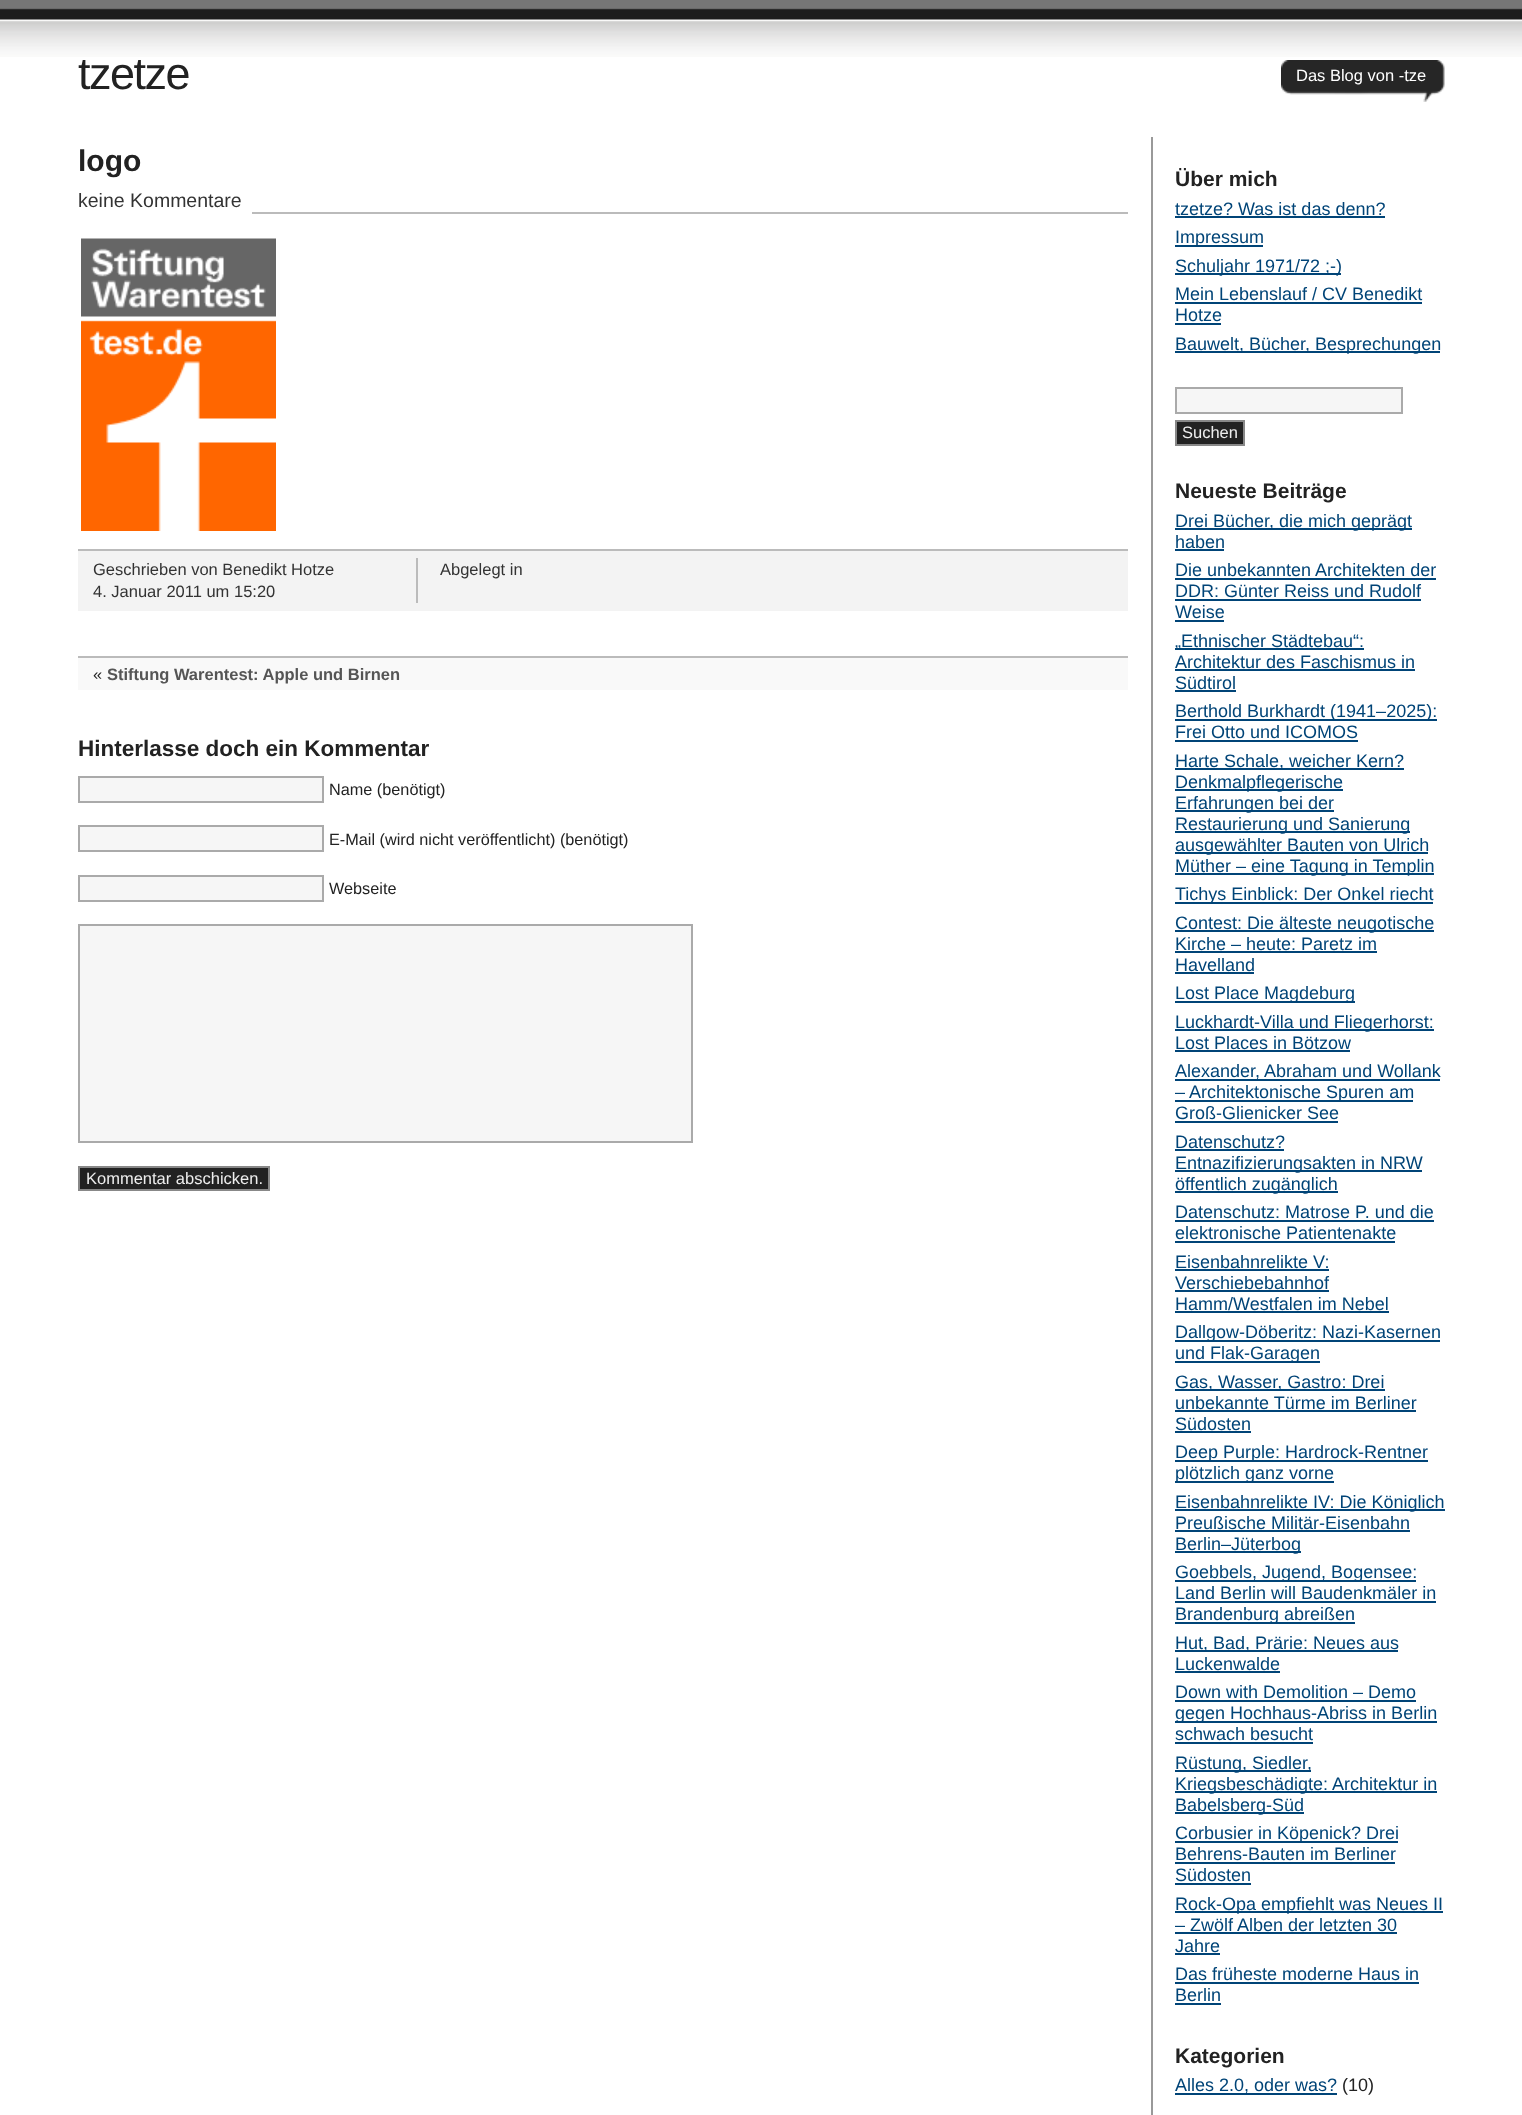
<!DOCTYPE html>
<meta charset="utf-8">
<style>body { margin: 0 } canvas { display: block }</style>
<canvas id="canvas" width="1522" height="2115"></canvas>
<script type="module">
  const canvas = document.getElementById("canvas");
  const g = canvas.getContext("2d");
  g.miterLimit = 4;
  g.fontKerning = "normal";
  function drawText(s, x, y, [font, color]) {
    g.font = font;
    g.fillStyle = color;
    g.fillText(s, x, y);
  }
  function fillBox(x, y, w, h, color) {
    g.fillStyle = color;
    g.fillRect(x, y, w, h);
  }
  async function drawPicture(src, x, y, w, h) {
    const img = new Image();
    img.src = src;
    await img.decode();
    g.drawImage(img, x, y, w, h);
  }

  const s1 = ["45px Liberation Sans", "#222222"];
  const s2 = ["16.5px Liberation Sans", "#FFFFFF"];
  const s3 = ["bold 30px Liberation Sans", "#222222"];
  const s4 = ["19.5px Liberation Sans", "#333333"];
  const s5 = ["16.5px Liberation Sans", "#333333"];
  const s6 = ["16.5px Liberation Sans", "#222222"];
  const s7 = ["bold 16.5px Liberation Sans", "#555555"];
  const s8 = ["bold 22.5px Liberation Sans", "#222222"];
  const s9 = ["16.25px Liberation Sans", "#222222"];
  const s10 = ["16.5px Liberation Sans", "#EEEEEE"];
  const s11 = ["bold 21px Liberation Sans", "#222222"];
  const s12 = ["18px Liberation Sans", "#004477"];
  const s13 = ["18px Liberation Sans", "#222222"];

  fillBox(0, 0, 1522, 2115, "#FFFFFF");
  await drawPicture("pic1.png", 0, 0, 1522, 57);
  g.letterSpacing = "-1.5px";
  drawText("tzetze", 78, 89, s1);
  await drawPicture("pic2.png", 1281, 60, 164, 42);
  await drawPicture("pic3.png", 1281, 60, 10, 35);
  g.letterSpacing = "0px";
  drawText("Das Blog von -tze", 1296, 81, s2);
  drawText("logo", 78, 171, s3);
  fillBox(252, 212, 876, 2, "#BBBBBB");
  drawText("keine Kommentare", 78, 207, s4);
  await drawPicture("pic4.png", 81, 238, 195, 293);
  fillBox(78, 551, 1050, 60, "#F3F3F3");
  fillBox(78, 549, 1050, 2, "#BBBBBB");
  fillBox(416, 558, 2, 45, "#BBBBBB");
  drawText("Geschrieben von Benedikt Hotze", 93, 575, s5);
  drawText("4. Januar 2011 um 15:20", 93, 597, s5);
  drawText("Abgelegt in", 440, 575, s5);
  fillBox(78, 658, 1050, 32, "#F9F9F9");
  fillBox(78, 656, 1050, 2, "#BBBBBB");
  drawText("«", 93, 680, s6);
  drawText("Stiftung Warentest: Apple und Birnen", 107, 680, s7);
  drawText("Hinterlasse doch ein Kommentar", 78, 756, s8);
  g.fillStyle = "#F6F6F6";
  g.beginPath();
  g.rect(79, 777, 244, 25);
  g.fill();
  g.strokeStyle = "#AAAAAA";
  g.lineWidth = 2;
  g.stroke();
  drawText("Name (benötigt)", 329, 795, s9);
  g.fillStyle = "#F6F6F6";
  g.beginPath();
  g.rect(79, 826, 244, 25);
  g.fill();
  g.stroke();
  drawText("E-Mail (wird nicht veröffentlicht) (benötigt)", 329, 845, s9);
  g.fillStyle = "#F6F6F6";
  g.beginPath();
  g.rect(79, 876, 244, 25);
  g.fill();
  g.stroke();
  drawText("Webseite", 329, 894, s9);
  g.fillStyle = "#F6F6F6";
  g.beginPath();
  g.rect(79, 925, 613, 217);
  g.fill();
  g.stroke();
  g.fillStyle = "#222222";
  g.beginPath();
  g.rect(79, 1167, 190, 23);
  g.fill();
  g.strokeStyle = "#888888";
  g.stroke();
  drawText("Kommentar abschicken.", 86, 1184, s10);
  fillBox(1151, 137, 2, 1978, "#999999");
  drawText("Über mich", 1175, 186, s11);
  drawText("tzetze? Was ist das denn?", 1175, 215, s12);
  fillBox(1175, 216, 210, 2, "#004477");
  fillBox(1175, 245, 88, 2, "#004477");
  drawText("Impressum", 1175, 243, s12);
  fillBox(1175, 273, 166, 2, "#004477");
  drawText("Schuljahr 1971/72 ;-)", 1175, 272, s12);
  drawText("Mein Lebenslauf / CV Benedikt", 1175, 300, s12);
  fillBox(1175, 302, 247, 2, "#004477");
  drawText("Hotze", 1175, 321, s12);
  fillBox(1175, 323, 46, 2, "#004477");
  fillBox(1175, 351, 265, 2, "#004477");
  drawText("Bauwelt, Bücher, Besprechungen", 1175, 350, s12);
  g.fillStyle = "#F6F6F6";
  g.beginPath();
  g.rect(1176, 388, 226, 25);
  g.fill();
  g.strokeStyle = "#AAAAAA";
  g.stroke();
  g.fillStyle = "#222222";
  g.beginPath();
  g.rect(1176, 421, 68, 24);
  g.fill();
  g.strokeStyle = "#888888";
  g.stroke();
  drawText("Suchen", 1182, 438, s10);
  drawText("Neueste Beiträge", 1175, 498, s11);
  fillBox(1175, 528, 237, 2, "#004477");
  drawText("Drei Bücher, die mich geprägt", 1175, 527, s12);
  drawText("haben", 1175, 548, s12);
  fillBox(1175, 549, 49, 2, "#004477");
  drawText("Die unbekannten Architekten der", 1175, 576, s12);
  fillBox(1175, 578, 261, 2, "#004477");
  drawText("DDR: Günter Reiss und Rudolf", 1175, 597, s12);
  fillBox(1175, 599, 246, 2, "#004477");
  drawText("Weise", 1175, 618, s12);
  fillBox(1175, 620, 49, 2, "#004477");
  fillBox(1175, 648, 189, 2, "#004477");
  drawText("„Ethnischer Städtebau“:", 1175, 647, s12);
  drawText("Architektur des Faschismus in", 1175, 668, s12);
  fillBox(1175, 669, 240, 2, "#004477");
  drawText("Südtirol", 1175, 689, s12);
  fillBox(1175, 690, 61, 2, "#004477");
  fillBox(1175, 719, 262, 2, "#004477");
  drawText("Berthold Burkhardt (1941–2025):", 1175, 717, s12);
  drawText("Frei Otto und ICOMOS", 1175, 738, s12);
  fillBox(1175, 740, 183, 2, "#004477");
  fillBox(1175, 768, 229, 2, "#004477");
  drawText("Harte Schale, weicher Kern?", 1175, 767, s12);
  fillBox(1175, 789, 168, 2, "#004477");
  drawText("Denkmalpflegerische", 1175, 788, s12);
  fillBox(1175, 810, 159, 2, "#004477");
  drawText("Erfahrungen bei der", 1175, 809, s12);
  fillBox(1175, 831, 235, 2, "#004477");
  drawText("Restaurierung und Sanierung", 1175, 830, s12);
  fillBox(1175, 852, 253, 2, "#004477");
  drawText("ausgewählter Bauten von Ulrich", 1175, 851, s12);
  fillBox(1175, 873, 259, 2, "#004477");
  drawText("Müther – eine Tagung in Templin", 1175, 872, s12);
  fillBox(1175, 902, 258, 2, "#004477");
  drawText("Tichys Einblick: Der Onkel riecht", 1175, 900, s12);
  fillBox(1175, 930, 259, 2, "#004477");
  drawText("Contest: Die älteste neugotische", 1175, 929, s12);
  drawText("Kirche – heute: Paretz im", 1175, 950, s12);
  fillBox(1175, 951, 202, 2, "#004477");
  drawText("Havelland", 1175, 971, s12);
  fillBox(1175, 972, 79, 2, "#004477");
  fillBox(1175, 1001, 180, 2, "#004477");
  drawText("Lost Place Magdeburg", 1175, 999, s12);
  fillBox(1175, 1029, 259, 2, "#004477");
  drawText("Luckhardt-Villa und Fliegerhorst:", 1175, 1028, s12);
  drawText("Lost Places in Bötzow", 1175, 1049, s12);
  fillBox(1175, 1050, 175, 2, "#004477");
  fillBox(1175, 1079, 265, 2, "#004477");
  drawText("Alexander, Abraham und Wollank", 1175, 1077, s12);
  fillBox(1175, 1100, 238, 2, "#004477");
  drawText("– Architektonische Spuren am", 1175, 1098, s12);
  drawText("Groß-Glienicker See", 1175, 1119, s12);
  fillBox(1175, 1121, 163, 2, "#004477");
  drawText("Datenschutz?", 1175, 1148, s12);
  fillBox(1175, 1149, 109, 2, "#004477");
  fillBox(1175, 1170, 247, 2, "#004477");
  drawText("Entnazifizierungsakten in NRW", 1175, 1169, s12);
  fillBox(1175, 1191, 163, 2, "#004477");
  drawText("öffentlich zugänglich", 1175, 1190, s12);
  drawText("Datenschutz: Matrose P. und die", 1175, 1218, s12);
  fillBox(1175, 1220, 259, 2, "#004477");
  drawText("elektronische Patientenakte", 1175, 1239, s12);
  fillBox(1175, 1241, 220, 2, "#004477");
  drawText("Eisenbahnrelikte V:", 1175, 1268, s12);
  fillBox(1175, 1269, 154, 2, "#004477");
  drawText("Verschiebebahnhof", 1175, 1289, s12);
  fillBox(1175, 1290, 154, 2, "#004477");
  drawText("Hamm/Westfalen im Nebel", 1175, 1310, s12);
  fillBox(1175, 1311, 214, 2, "#004477");
  fillBox(1175, 1340, 265, 2, "#004477");
  drawText("Dallgow-Döberitz: Nazi-Kasernen", 1175, 1338, s12);
  fillBox(1175, 1361, 145, 2, "#004477");
  drawText("und Flak-Garagen", 1175, 1359, s12);
  fillBox(1175, 1389, 210, 2, "#004477");
  drawText("Gas, Wasser, Gastro: Drei", 1175, 1388, s12);
  drawText("unbekannte Türme im Berliner", 1175, 1409, s12);
  fillBox(1175, 1410, 241, 2, "#004477");
  drawText("Südosten", 1175, 1430, s12);
  fillBox(1175, 1431, 76, 2, "#004477");
  fillBox(1175, 1460, 253, 2, "#004477");
  drawText("Deep Purple: Hardrock-Rentner", 1175, 1458, s12);
  fillBox(1175, 1481, 159, 2, "#004477");
  drawText("plötzlich ganz vorne", 1175, 1479, s12);
  fillBox(1175, 1509, 270, 2, "#004477");
  drawText("Eisenbahnrelikte IV: Die Königlich", 1175, 1508, s12);
  drawText("Preußische Militär-Eisenbahn", 1175, 1529, s12);
  fillBox(1175, 1530, 235, 2, "#004477");
  fillBox(1175, 1551, 126, 2, "#004477");
  drawText("Berlin–Jüterbog", 1175, 1550, s12);
  fillBox(1175, 1580, 241, 2, "#004477");
  drawText("Goebbels, Jugend, Bogensee:", 1175, 1578, s12);
  drawText("Land Berlin will Baudenkmäler in", 1175, 1599, s12);
  fillBox(1175, 1601, 261, 2, "#004477");
  fillBox(1175, 1622, 180, 2, "#004477");
  drawText("Brandenburg abreißen", 1175, 1620, s12);
  fillBox(1175, 1650, 223, 2, "#004477");
  drawText("Hut, Bad, Prärie: Neues aus", 1175, 1649, s12);
  drawText("Luckenwalde", 1175, 1670, s12);
  fillBox(1175, 1671, 105, 2, "#004477");
  drawText("Down with Demolition – Demo", 1175, 1698, s12);
  fillBox(1175, 1700, 241, 2, "#004477");
  fillBox(1175, 1721, 262, 2, "#004477");
  drawText("gegen Hochhaus-Abriss in Berlin", 1175, 1719, s12);
  drawText("schwach besucht", 1175, 1740, s12);
  fillBox(1175, 1742, 138, 2, "#004477");
  fillBox(1175, 1770, 136, 2, "#004477");
  drawText("Rüstung, Siedler,", 1175, 1769, s12);
  fillBox(1175, 1791, 262, 2, "#004477");
  drawText("Kriegsbeschädigte: Architektur in", 1175, 1790, s12);
  fillBox(1175, 1812, 129, 2, "#004477");
  drawText("Babelsberg-Süd", 1175, 1811, s12);
  fillBox(1175, 1841, 223, 2, "#004477");
  drawText("Corbusier in Köpenick? Drei", 1175, 1839, s12);
  drawText("Behrens-Bauten im Berliner", 1175, 1860, s12);
  fillBox(1175, 1862, 220, 2, "#004477");
  drawText("Südosten", 1175, 1881, s12);
  fillBox(1175, 1883, 76, 2, "#004477");
  fillBox(1175, 1911, 268, 2, "#004477");
  drawText("Rock-Opa empfiehlt was Neues II", 1175, 1910, s12);
  drawText("– Zwölf Alben der letzten 30", 1175, 1931, s12);
  fillBox(1175, 1932, 222, 2, "#004477");
  drawText("Jahre", 1175, 1952, s12);
  fillBox(1175, 1953, 45, 2, "#004477");
  drawText("Das früheste moderne Haus in", 1175, 1980, s12);
  fillBox(1175, 1982, 244, 2, "#004477");
  drawText("Berlin", 1175, 2001, s12);
  fillBox(1175, 2003, 46, 2, "#004477");
  drawText("Kategorien", 1175, 2063, s11);
  fillBox(1175, 2093, 162, 2, "#004477");
  drawText("Alles 2.0, oder was?", 1175, 2091, s12);
  drawText("(10)", 1342, 2091, s13);
</script>
